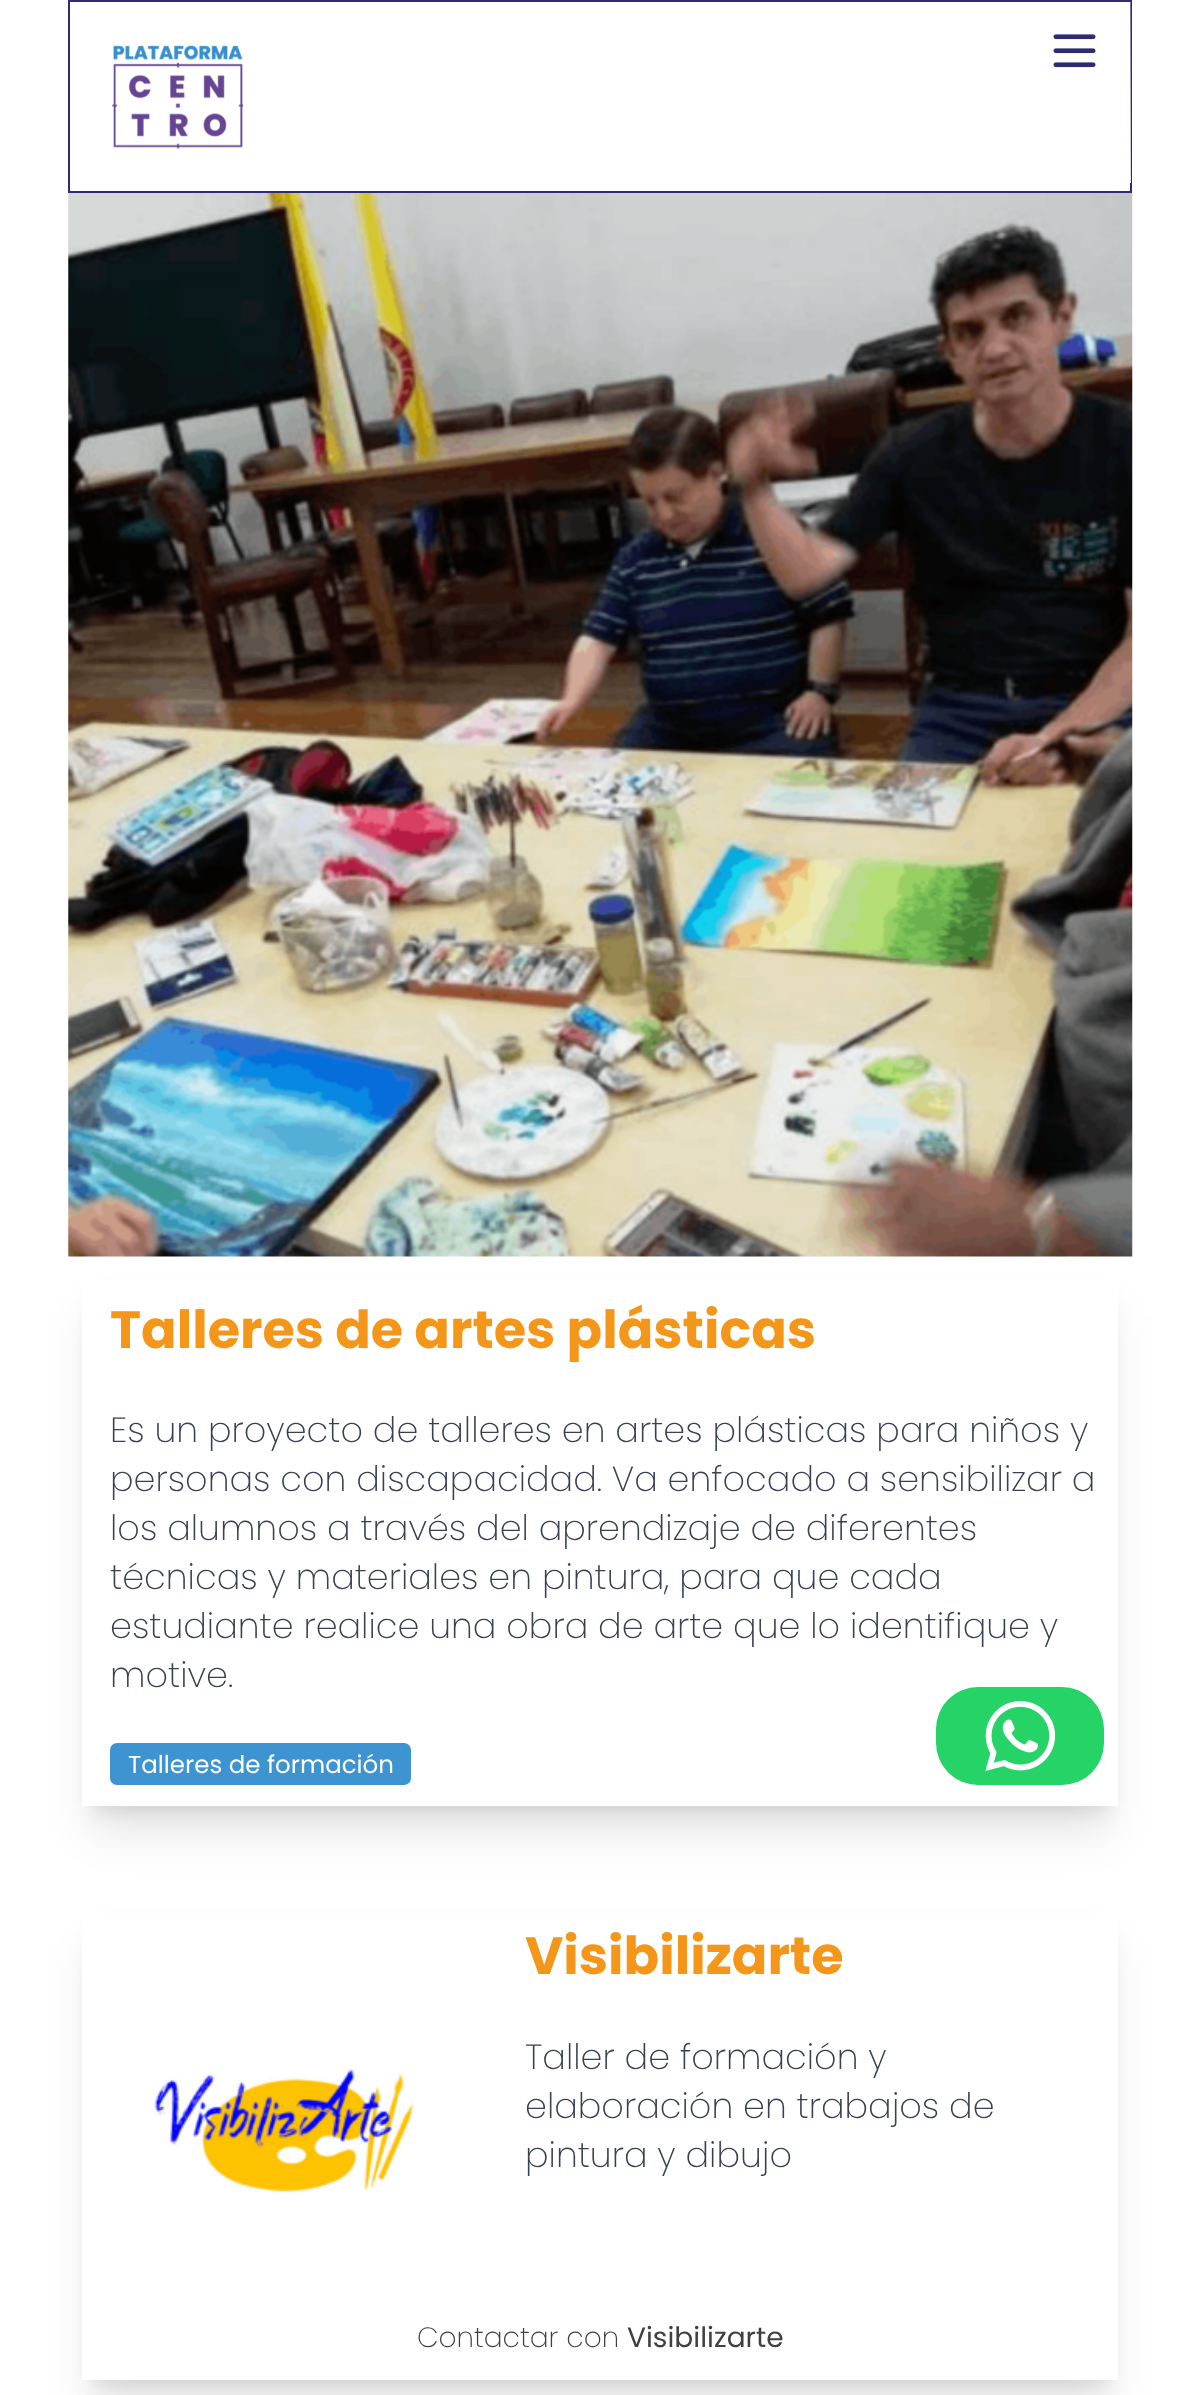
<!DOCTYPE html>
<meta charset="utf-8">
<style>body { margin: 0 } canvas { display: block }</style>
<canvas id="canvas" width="1199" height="2395"></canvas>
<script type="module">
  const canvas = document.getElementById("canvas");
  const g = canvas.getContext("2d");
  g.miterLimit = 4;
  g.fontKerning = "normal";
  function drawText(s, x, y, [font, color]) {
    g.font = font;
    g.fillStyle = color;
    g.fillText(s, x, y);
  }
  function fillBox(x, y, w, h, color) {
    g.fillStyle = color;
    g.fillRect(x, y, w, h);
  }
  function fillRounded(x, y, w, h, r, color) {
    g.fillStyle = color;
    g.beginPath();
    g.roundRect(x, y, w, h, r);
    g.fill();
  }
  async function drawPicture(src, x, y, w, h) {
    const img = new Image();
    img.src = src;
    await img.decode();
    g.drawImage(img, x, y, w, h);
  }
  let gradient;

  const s1 = ["bold 52.5px Poppins", "#F49619"];
  const s2 = ["200 35px Poppins", "#374151"];
  const s3 = ["24.5px Poppins", "#FFFFFF"];
  const s4 = ["200 28px Poppins", "#404040"];
  const s5 = ["28px Poppins", "#404040"];

  fillBox(0, 0, 1199, 2395, "#FFFFFF");
  await drawPicture("pic3.png", 68, 192, 1065, 1065);
  g.strokeStyle = "#2F2A71";
  g.lineWidth = 2;
  g.strokeRect(69, 1, 1062, 191);
  gradient = g.createLinearGradient(596, -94, 603, 241);
  gradient.addColorStop(0, "rgba(255, 255, 255, 0)");
  gradient.addColorStop(1, "#FFFFFF");
  g.fillStyle = gradient;
  g.fillRect(1130, 2, 1, 181);
  await drawPicture("pic1.png", 112, 45, 132, 104);
  await drawPicture("pic2.png", 1053, 34, 43, 34);
  g.fillStyle = "rgba(0, 0, 0, 0.1)";
  g.filter = "blur(9px)";
  g.beginPath();
  g.rect(93, 1295, 1015, 515);
  g.fill();
  g.filter = "none";
  g.filter = "blur(22px)";
  g.beginPath();
  g.rect(91, 1314, 1019, 518);
  g.fill();
  g.filter = "none";
  fillBox(82, 1279, 1036, 527, "#FFFFFF");
  drawText("Talleres de artes plásticas", 110, 1348, s1);
  drawText("Es un proyecto de talleres en artes plásticas para niños y", 110, 1442, s2);
  drawText("personas con discapacidad. Va enfocado a sensibilizar a", 110, 1491, s2);
  drawText("los alumnos a través del aprendizaje de diferentes", 110, 1540, s2);
  drawText("técnicas y materiales en pintura, para que cada", 110, 1589, s2);
  drawText("estudiante realice una obra de arte que lo identifique y", 110, 1638, s2);
  drawText("motive.", 110, 1687, s2);
  fillRounded(110, 1743, 301, 42, 7, "#3D94D0");
  drawText("Talleres de formación", 128, 1773, s3);
  fillRounded(936, 1687, 168, 98, 42, "#25D366");
  await drawPicture("pic4.png", 985, 1701, 71, 70);
  g.fillStyle = "rgba(0, 0, 0, 0.1)";
  g.filter = "blur(9px)";
  g.beginPath();
  g.rect(93, 1929, 1015, 455);
  g.fill();
  g.filter = "none";
  g.filter = "blur(22px)";
  g.beginPath();
  g.rect(91, 1948, 1019, 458);
  g.fill();
  g.filter = "none";
  fillBox(82, 1913, 1036, 467, "#FFFFFF");
  await drawPicture("pic5.png", 154, 2069, 260, 125);
  drawText("Visibilizarte", 525, 1974, s1);
  drawText("Taller de formación y", 525, 2069, s2);
  drawText("elaboración en trabajos de", 525, 2118, s2);
  drawText("pintura y dibujo", 525, 2167, s2);
  drawText("Contactar con", 417, 2347, s4);
  drawText("Visibilizarte", 627, 2347, s5);
</script>
